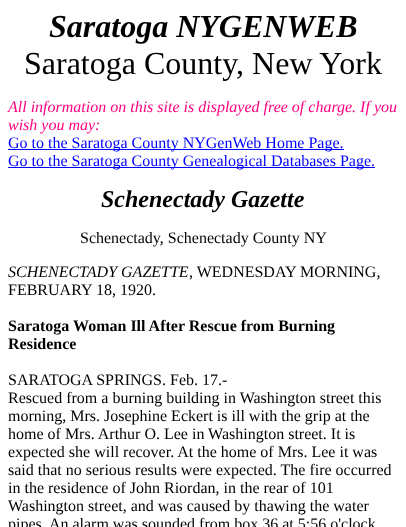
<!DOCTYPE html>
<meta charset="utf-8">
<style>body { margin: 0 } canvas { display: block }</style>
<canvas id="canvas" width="406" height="527"></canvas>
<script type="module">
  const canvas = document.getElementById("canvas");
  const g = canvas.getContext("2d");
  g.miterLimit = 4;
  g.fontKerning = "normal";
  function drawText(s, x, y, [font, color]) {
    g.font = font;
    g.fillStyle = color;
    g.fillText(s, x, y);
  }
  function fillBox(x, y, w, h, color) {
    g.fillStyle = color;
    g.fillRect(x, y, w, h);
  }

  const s1 = ["italic bold 32px Liberation Serif", "#000000"];
  const s2 = ["32px Liberation Serif", "#000000"];
  const s3 = ["italic 16px Liberation Serif", "#FF0080"];
  const s4 = ["16px Liberation Serif", "#0000FF"];
  const s5 = ["italic bold 24px Liberation Serif", "#000000"];
  const s6 = ["16px Liberation Serif", "#000000"];
  const s7 = ["italic 16px Liberation Serif", "#000000"];
  const s8 = ["bold 16px Liberation Serif", "#000000"];

  fillBox(0, 0, 406, 527, "#FFFFFF");
  drawText("Saratoga NYGENWEB", 49, 37, s1);
  drawText("Saratoga County, New York", 24, 74, s2);
  drawText("All information on this site is displayed free of charge. If you", 8, 112, s3);
  drawText("wish you may:", 8, 130, s3);
  fillBox(8, 149, 336, 1, "#0000FF");
  drawText("Go to the Saratoga County NYGenWeb Home Page.", 8, 148, s4);
  fillBox(8, 167, 367, 1, "#0000FF");
  drawText("Go to the Saratoga County Genealogical Databases Page.", 8, 166, s4);
  drawText("Schenectady Gazette", 101, 207, s5);
  drawText("Schenectady, Schenectady County NY", 80, 243, s6);
  drawText("SCHENECTADY GAZETTE", 8, 277, s7);
  drawText(", WEDNESDAY MORNING,", 189, 277, s6);
  drawText("FEBRUARY 18, 1920.", 8, 295, s6);
  drawText("Saratoga Woman Ill After Rescue from Burning", 8, 331, s8);
  drawText("Residence", 8, 349, s8);
  drawText("SARATOGA SPRINGS. Feb. 17.-", 8, 385, s6);
  drawText("Rescued from a burning building in Washington street this", 8, 403, s6);
  drawText("morning, Mrs. Josephine Eckert is ill with the grip at the", 8, 421, s6);
  drawText("home of Mrs. Arthur O. Lee in Washington street. It is", 8, 439, s6);
  drawText("expected she will recover. At the home of Mrs. Lee it was", 8, 457, s6);
  drawText("said that no serious results were expected. The fire occurred", 8, 475, s6);
  drawText("in the residence of John Riordan, in the rear of 101", 8, 493, s6);
  drawText("Washington street, and was caused by thawing the water", 8, 511, s6);
  drawText("pipes. An alarm was sounded from box 36 at 5:56 o'clock", 8, 529, s6);
</script>
